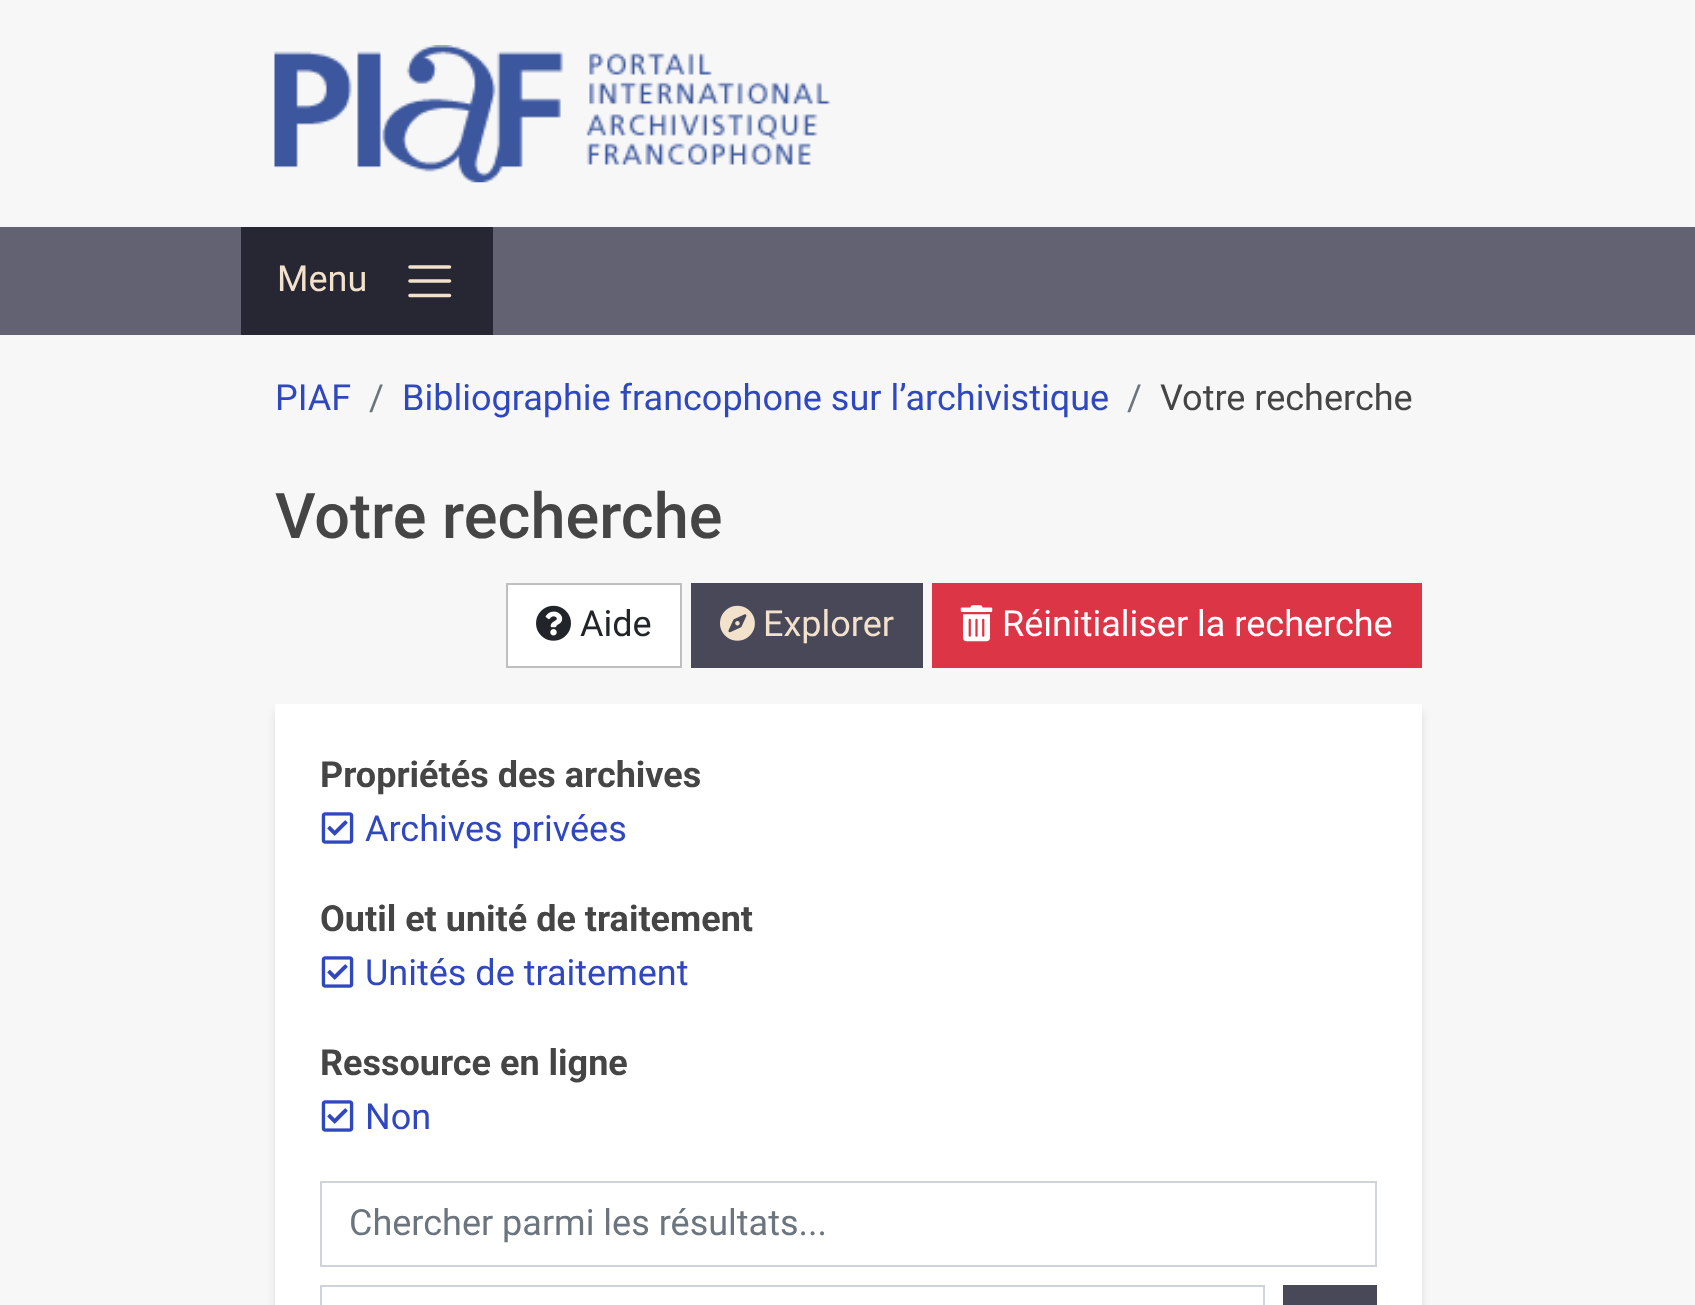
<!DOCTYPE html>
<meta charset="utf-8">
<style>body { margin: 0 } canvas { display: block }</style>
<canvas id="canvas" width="1695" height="1305"></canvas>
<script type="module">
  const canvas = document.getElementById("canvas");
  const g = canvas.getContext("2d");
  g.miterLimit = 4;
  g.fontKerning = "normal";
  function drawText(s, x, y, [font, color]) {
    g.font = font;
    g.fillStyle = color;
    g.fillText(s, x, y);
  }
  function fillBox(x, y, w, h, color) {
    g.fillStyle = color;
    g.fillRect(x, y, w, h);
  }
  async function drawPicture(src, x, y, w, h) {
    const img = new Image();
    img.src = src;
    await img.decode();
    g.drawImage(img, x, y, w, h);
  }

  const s1 = ["36px Roboto", "#F2E1CB"];
  const s2 = ["36px Roboto", "#3048BF"];
  const s3 = ["36px Roboto", "#6C757D"];
  const s4 = ["36px Roboto", "#454545"];
  const s5 = ["500 63px Roboto", "#454545"];
  const s6 = ["36px Roboto", "#212529"];
  const s7 = ["36px Roboto", "#FFFFFF"];
  const s8 = ["bold 36px Roboto", "#454545"];

  fillBox(0, 0, 1695, 1305, "#F7F7F7");
  await drawPicture("pic1.png", 274, 45, 557, 138);
  fillBox(0, 227, 1695, 108, "#626272");
  fillBox(241, 227, 252, 108, "#272733");
  drawText("Menu", 277, 291, s1);
  g.beginPath();
  g.moveTo(410, 267);
  g.lineTo(449.5, 267);
  g.moveTo(410, 281);
  g.lineTo(449.5, 281);
  g.moveTo(410, 295.5);
  g.lineTo(449.5, 295.5);
  g.strokeStyle = "#F2E1CB";
  g.lineWidth = 3.6;
  g.lineCap = "round";
  g.stroke();
  drawText("PIAF", 275, 410, s2);
  drawText("/", 369, 410, s3);
  drawText("Bibliographie francophone sur l’archivistique", 402, 410, s2);
  drawText("/", 1127, 410, s3);
  drawText("Votre recherche", 1160, 410, s4);
  drawText("Votre recherche", 275, 538, s5);
  g.fillStyle = "#FFFFFF";
  g.beginPath();
  g.rect(507, 584, 174, 83);
  g.fill();
  g.strokeStyle = "#BFBFBF";
  g.lineWidth = 2;
  g.stroke();
  await drawPicture("pic2.png", 536, 605, 35, 36);
  drawText("Aide", 580, 636, s6);
  fillBox(691, 583, 232, 85, "#484858");
  await drawPicture("pic3.png", 720, 605, 35, 36);
  drawText("Explorer", 763, 636, s1);
  fillBox(932, 583, 490, 85, "#DC3545");
  await drawPicture("pic4.png", 960, 605, 33, 37);
  drawText("Réinitialiser la recherche", 1002, 636, s7);
  g.fillStyle = "rgba(0, 0, 0, 0.1)";
  g.filter = "blur(4.5px)";
  g.beginPath();
  g.rect(275, 711, 1147, 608);
  g.fill();
  g.filter = "none";
  fillBox(275, 704, 1147, 601, "#FFFFFF");
  drawText("Propriétés des archives", 320, 787, s8);
  await drawPicture("pic5.png", 321, 812, 33, 32);
  drawText("Archives privées", 365, 841, s2);
  drawText("Outil et unité de traitement", 320, 931, s8);
  await drawPicture("pic5.png", 321, 956, 33, 32);
  drawText("Unités de traitement", 365, 985, s2);
  drawText("Ressource en ligne", 320, 1075, s8);
  await drawPicture("pic5.png", 321, 1100, 33, 32);
  drawText("Non", 365, 1129, s2);
  g.strokeStyle = "#CED4DA";
  g.strokeRect(321, 1182, 1055, 84);
  drawText("Chercher parmi les résultats...", 349, 1235, s3);
  g.strokeRect(321, 1286, 943, 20);
  fillBox(1283, 1285, 94, 20, "#484858");
</script>
